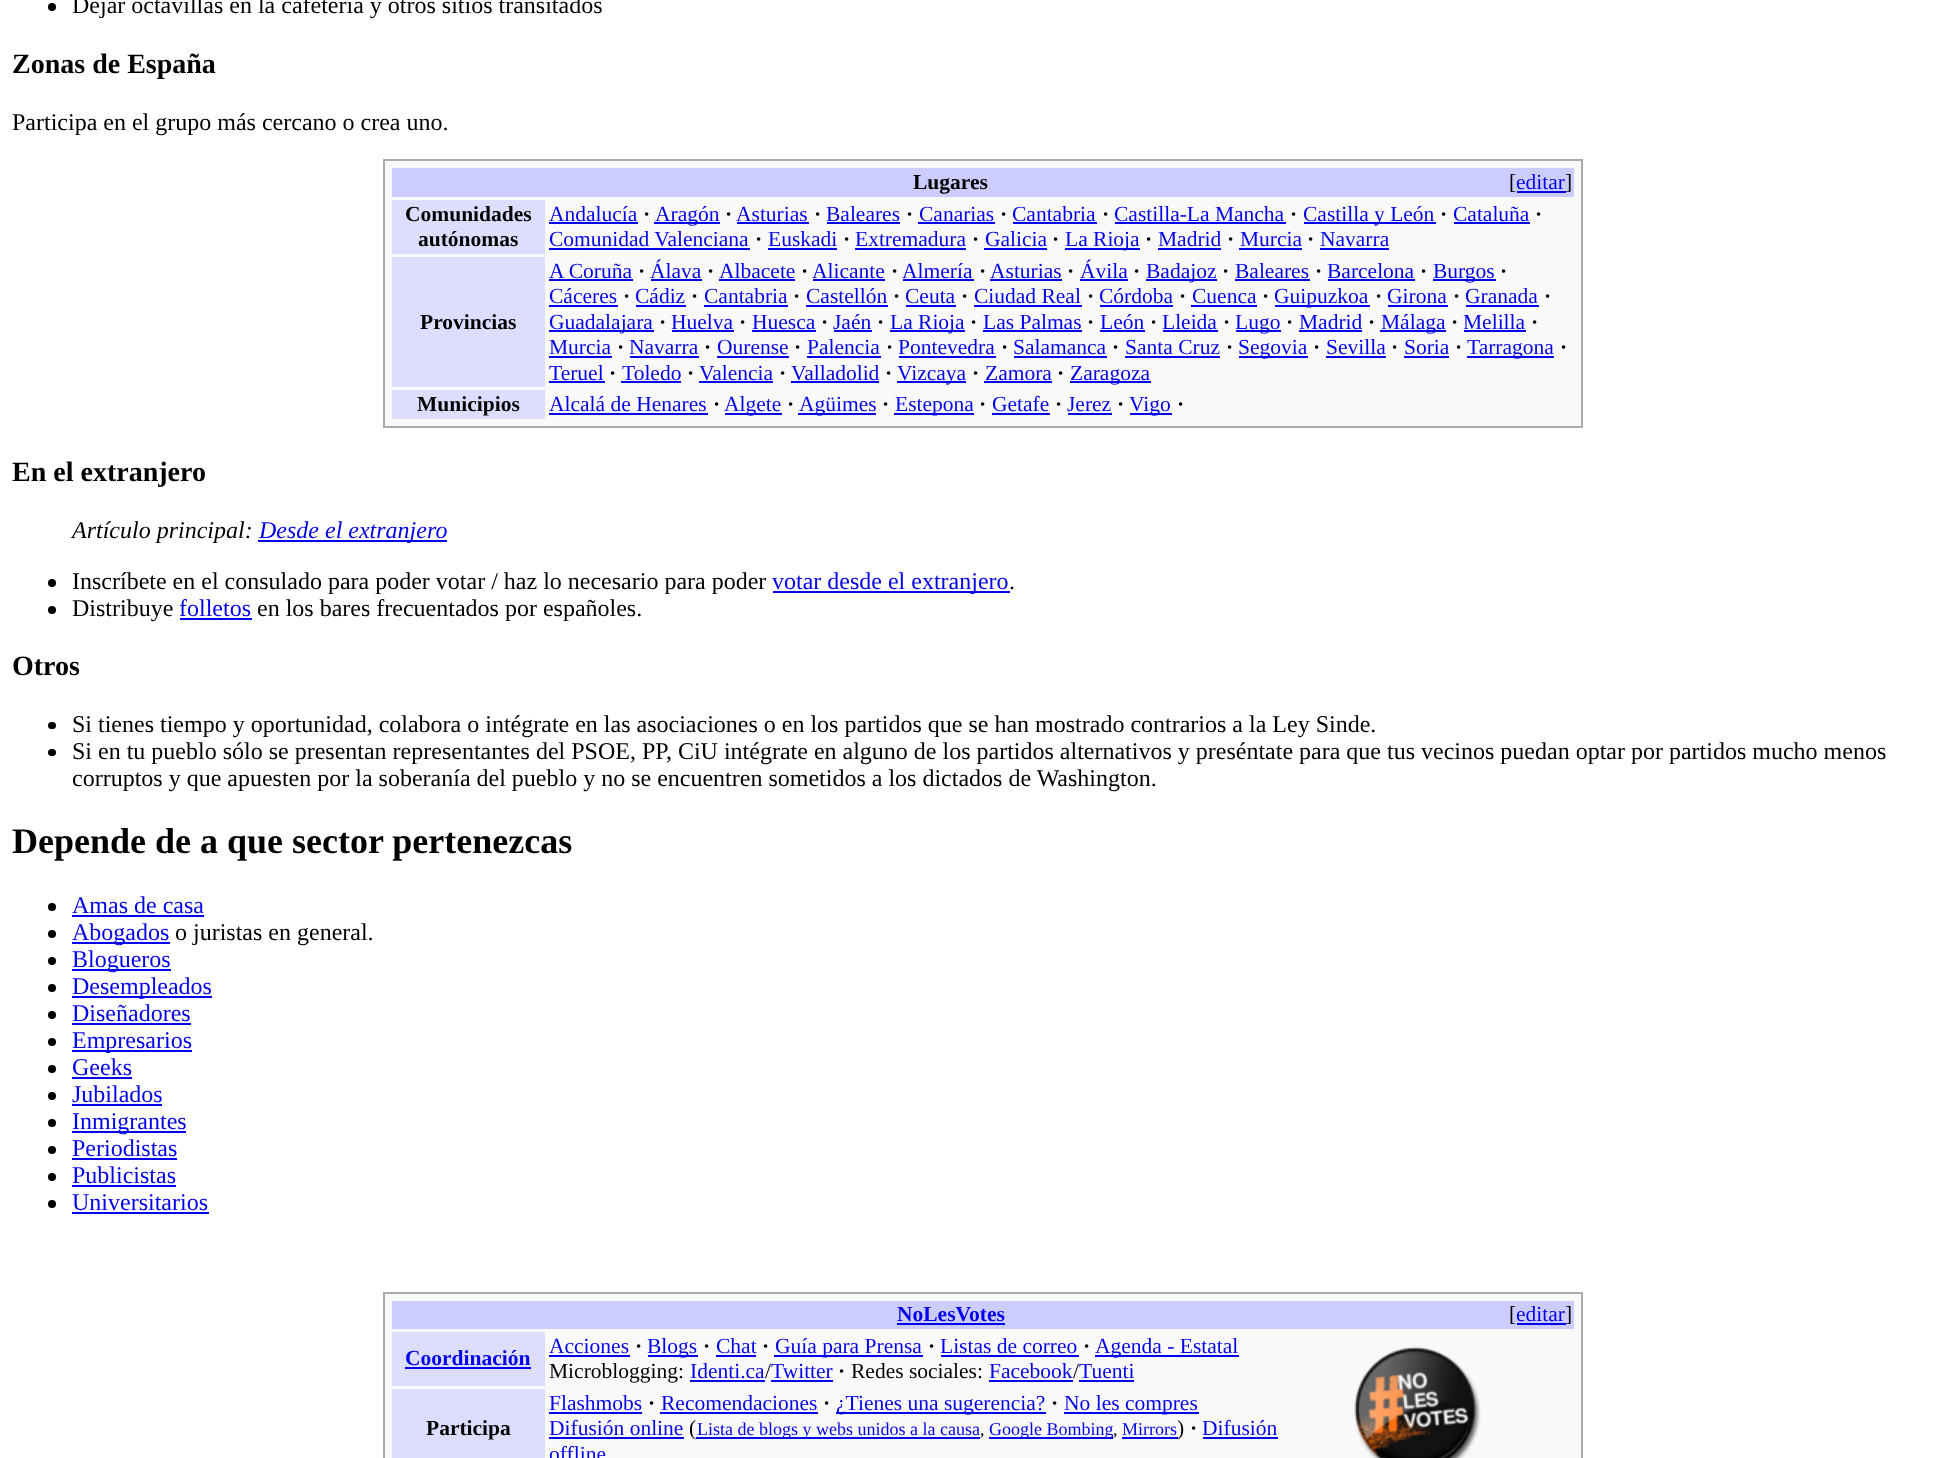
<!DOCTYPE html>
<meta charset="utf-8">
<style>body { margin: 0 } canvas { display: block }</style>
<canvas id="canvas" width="1944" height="1458"></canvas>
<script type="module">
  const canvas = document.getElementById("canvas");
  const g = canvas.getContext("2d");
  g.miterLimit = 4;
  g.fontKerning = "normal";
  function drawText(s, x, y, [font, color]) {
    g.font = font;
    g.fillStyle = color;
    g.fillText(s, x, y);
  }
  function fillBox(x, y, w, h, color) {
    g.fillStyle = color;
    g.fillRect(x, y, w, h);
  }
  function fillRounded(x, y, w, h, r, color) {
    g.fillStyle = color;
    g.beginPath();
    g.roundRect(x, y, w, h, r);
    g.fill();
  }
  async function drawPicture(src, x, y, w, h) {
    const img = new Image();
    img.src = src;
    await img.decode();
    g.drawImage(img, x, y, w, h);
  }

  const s1 = ["24px Liberation Serif", "#000000"];
  const s2 = ["bold 28px Liberation Serif", "#000000"];
  const s3 = ["bold 21.5px Liberation Serif", "#000000"];
  const s4 = ["21.5px Liberation Serif", "#000000"];
  const s5 = ["21.5px Liberation Serif", "#0000EE"];
  const s6 = ["italic 24px Liberation Serif", "#000000"];
  const s7 = ["italic 24px Liberation Serif", "#0000EE"];
  const s8 = ["24px Liberation Serif", "#0000EE"];
  const s9 = ["bold 36px Liberation Serif", "#000000"];
  const s10 = ["bold 21.5px Liberation Serif", "#0000EE"];
  const s11 = ["18px Liberation Serif", "#0000EE"];
  const s12 = ["18px Liberation Serif", "#000000"];

  fillBox(0, 0, 1944, 1458, "#FFFFFF");
  g.fillStyle = "#000000";
  g.beginPath();
  g.arc(52, 7, 4, 0, Math.PI * 2);
  g.fill();
  drawText("Dejar octavillas en la cafetería y otros sitios transitados", 72, 13, s1);
  drawText("Zonas de España", 12, 73, s2);
  drawText("Participa en el grupo más cercano o crea uno.", 12, 130, s1);
  g.fillStyle = "#F9F9F9";
  g.beginPath();
  g.rect(384, 160, 1198, 267);
  g.fill();
  g.strokeStyle = "#AAAAAA";
  g.lineWidth = 2;
  g.stroke();
  fillBox(392, 168, 1182, 29, "#CCCCFF");
  drawText("Lugares", 913, 189, s3);
  drawText("[", 1509, 189, s4);
  drawText("editar", 1516, 189, s5);
  fillBox(1517, 191, 49, 2, "#0000EE");
  drawText("]", 1565, 189, s4);
  fillBox(392, 200, 153, 54, "#DDDDFF");
  drawText("Comunidades", 405, 221, s3);
  drawText("autónomas", 418, 246, s3);
  drawText("Andalucía", 549, 221, s5);
  fillBox(549, 222, 89, 2, "#0000EE");
  drawText("·", 643, 221, s3);
  fillBox(654, 222, 66, 2, "#0000EE");
  drawText("Aragón", 655, 221, s5);
  drawText("·", 725, 221, s3);
  drawText("Asturias", 736, 221, s5);
  fillBox(737, 222, 72, 2, "#0000EE");
  drawText("·", 814, 221, s3);
  drawText("Baleares", 826, 221, s5);
  fillBox(827, 222, 73, 2, "#0000EE");
  drawText("·", 906, 221, s3);
  drawText("Canarias", 919, 221, s5);
  fillBox(918, 222, 77, 2, "#0000EE");
  drawText("·", 1000, 221, s3);
  drawText("Cantabria", 1012, 221, s5);
  fillBox(1013, 222, 84, 2, "#0000EE");
  drawText("·", 1102, 221, s3);
  drawText("Castilla-La Mancha", 1114, 221, s5);
  fillBox(1115, 222, 171, 2, "#0000EE");
  drawText("·", 1290, 221, s3);
  fillBox(1304, 222, 132, 2, "#0000EE");
  drawText("Castilla y León", 1303, 221, s5);
  drawText("·", 1440, 221, s3);
  drawText("Cataluña", 1453, 221, s5);
  fillBox(1454, 222, 76, 2, "#0000EE");
  drawText("·", 1535, 221, s3);
  drawText("Comunidad Valenciana", 549, 246, s5);
  fillBox(549, 248, 201, 2, "#0000EE");
  drawText("·", 755, 246, s3);
  drawText("Euskadi", 768, 246, s5);
  fillBox(768, 248, 69, 2, "#0000EE");
  drawText("·", 843, 246, s3);
  drawText("Extremadura", 855, 246, s5);
  fillBox(855, 248, 111, 2, "#0000EE");
  drawText("·", 972, 246, s3);
  drawText("Galicia", 985, 246, s5);
  fillBox(984, 248, 63, 2, "#0000EE");
  drawText("·", 1052, 246, s3);
  fillBox(1065, 248, 75, 2, "#0000EE");
  drawText("La Rioja", 1065, 246, s5);
  drawText("·", 1145, 246, s3);
  drawText("Madrid", 1158, 246, s5);
  fillBox(1158, 248, 63, 2, "#0000EE");
  drawText("·", 1227, 246, s3);
  drawText("Murcia", 1240, 246, s5);
  fillBox(1239, 248, 63, 2, "#0000EE");
  drawText("·", 1307, 246, s3);
  drawText("Navarra", 1320, 246, s5);
  fillBox(1320, 248, 69, 2, "#0000EE");
  fillBox(392, 257, 153, 130, "#DDDDFF");
  drawText("Provincias", 420, 329, s3);
  drawText("A Coruña", 549, 278, s5);
  fillBox(549, 279, 84, 2, "#0000EE");
  drawText("·", 638, 278, s3);
  drawText("Álava", 650, 278, s5);
  fillBox(651, 279, 51, 2, "#0000EE");
  drawText("·", 707, 278, s3);
  drawText("Albacete", 719, 278, s5);
  fillBox(719, 279, 76, 2, "#0000EE");
  drawText("·", 801, 278, s3);
  drawText("Alicante", 812, 278, s5);
  fillBox(813, 279, 72, 2, "#0000EE");
  drawText("·", 891, 278, s3);
  drawText("Almería", 902, 278, s5);
  fillBox(903, 279, 71, 2, "#0000EE");
  drawText("·", 979, 278, s3);
  drawText("Asturias", 990, 278, s5);
  fillBox(990, 279, 72, 2, "#0000EE");
  drawText("·", 1067, 278, s3);
  drawText("Ávila", 1080, 278, s5);
  fillBox(1080, 279, 48, 2, "#0000EE");
  drawText("·", 1133, 278, s3);
  fillBox(1146, 279, 71, 2, "#0000EE");
  drawText("Badajoz", 1146, 278, s5);
  drawText("·", 1222, 278, s3);
  drawText("Baleares", 1235, 278, s5);
  fillBox(1235, 279, 75, 2, "#0000EE");
  drawText("·", 1315, 278, s3);
  drawText("Barcelona", 1327, 278, s5);
  fillBox(1328, 279, 87, 2, "#0000EE");
  drawText("·", 1420, 278, s3);
  fillBox(1433, 279, 63, 2, "#0000EE");
  drawText("Burgos", 1433, 278, s5);
  drawText("·", 1500, 278, s3);
  drawText("Cáceres", 549, 303, s5);
  fillBox(549, 305, 69, 2, "#0000EE");
  drawText("·", 623, 303, s3);
  drawText("Cádiz", 635, 303, s5);
  fillBox(636, 305, 50, 2, "#0000EE");
  drawText("·", 691, 303, s3);
  drawText("Cantabria", 704, 303, s5);
  fillBox(704, 305, 84, 2, "#0000EE");
  drawText("·", 793, 303, s3);
  drawText("Castellón", 806, 303, s5);
  fillBox(806, 305, 82, 2, "#0000EE");
  drawText("·", 893, 303, s3);
  drawText("Ceuta", 905, 303, s5);
  fillBox(906, 305, 50, 2, "#0000EE");
  drawText("·", 961, 303, s3);
  drawText("Ciudad Real", 974, 303, s5);
  fillBox(974, 305, 108, 2, "#0000EE");
  drawText("·", 1087, 303, s3);
  drawText("Córdoba", 1099, 303, s5);
  fillBox(1100, 305, 73, 2, "#0000EE");
  drawText("·", 1179, 303, s3);
  drawText("Cuenca", 1192, 303, s5);
  fillBox(1191, 305, 66, 2, "#0000EE");
  drawText("·", 1262, 303, s3);
  fillBox(1275, 305, 95, 2, "#0000EE");
  drawText("Guipuzkoa", 1274, 303, s5);
  drawText("·", 1375, 303, s3);
  drawText("Girona", 1387, 303, s5);
  fillBox(1388, 305, 60, 2, "#0000EE");
  drawText("·", 1453, 303, s3);
  drawText("Granada", 1465, 303, s5);
  fillBox(1466, 305, 73, 2, "#0000EE");
  drawText("·", 1544, 303, s3);
  fillBox(549, 330, 105, 2, "#0000EE");
  drawText("Guadalajara", 549, 329, s5);
  drawText("·", 659, 329, s3);
  drawText("Huelva", 671, 329, s5);
  fillBox(672, 330, 62, 2, "#0000EE");
  drawText("·", 739, 329, s3);
  drawText("Huesca", 752, 329, s5);
  fillBox(752, 330, 64, 2, "#0000EE");
  drawText("·", 821, 329, s3);
  drawText("Jaén", 833, 329, s5);
  fillBox(834, 330, 38, 2, "#0000EE");
  drawText("·", 877, 329, s3);
  fillBox(890, 330, 75, 2, "#0000EE");
  drawText("La Rioja", 890, 329, s5);
  drawText("·", 970, 329, s3);
  drawText("Las Palmas", 983, 329, s5);
  fillBox(983, 330, 99, 2, "#0000EE");
  drawText("·", 1087, 329, s3);
  drawText("León", 1100, 329, s5);
  fillBox(1100, 330, 45, 2, "#0000EE");
  drawText("·", 1150, 329, s3);
  drawText("Lleida", 1162, 329, s5);
  fillBox(1163, 330, 55, 2, "#0000EE");
  drawText("·", 1223, 329, s3);
  fillBox(1236, 330, 45, 2, "#0000EE");
  drawText("Lugo", 1235, 329, s5);
  drawText("·", 1286, 329, s3);
  drawText("Madrid", 1299, 329, s5);
  fillBox(1299, 330, 63, 2, "#0000EE");
  drawText("·", 1368, 329, s3);
  fillBox(1380, 330, 66, 2, "#0000EE");
  drawText("Málaga", 1381, 329, s5);
  drawText("·", 1451, 329, s3);
  drawText("Melilla", 1463, 329, s5);
  fillBox(1464, 330, 62, 2, "#0000EE");
  drawText("·", 1531, 329, s3);
  drawText("Murcia", 549, 354, s5);
  fillBox(549, 356, 63, 2, "#0000EE");
  drawText("·", 617, 354, s3);
  drawText("Navarra", 629, 354, s5);
  fillBox(630, 356, 69, 2, "#0000EE");
  drawText("·", 704, 354, s3);
  drawText("Ourense", 717, 354, s5);
  fillBox(717, 356, 72, 2, "#0000EE");
  drawText("·", 794, 354, s3);
  drawText("Palencia", 807, 354, s5);
  fillBox(807, 356, 74, 2, "#0000EE");
  drawText("·", 886, 354, s3);
  drawText("Pontevedra", 898, 354, s5);
  fillBox(899, 356, 97, 2, "#0000EE");
  drawText("·", 1001, 354, s3);
  drawText("Salamanca", 1013, 354, s5);
  fillBox(1014, 356, 93, 2, "#0000EE");
  drawText("·", 1112, 354, s3);
  drawText("Santa Cruz", 1125, 354, s5);
  fillBox(1125, 356, 95, 2, "#0000EE");
  drawText("·", 1226, 354, s3);
  fillBox(1239, 356, 69, 2, "#0000EE");
  drawText("Segovia", 1238, 354, s5);
  drawText("·", 1313, 354, s3);
  drawText("Sevilla", 1326, 354, s5);
  fillBox(1326, 356, 60, 2, "#0000EE");
  drawText("·", 1391, 354, s3);
  drawText("Soria", 1404, 354, s5);
  fillBox(1404, 356, 45, 2, "#0000EE");
  drawText("·", 1455, 354, s3);
  fillBox(1467, 356, 87, 2, "#0000EE");
  drawText("Tarragona", 1467, 354, s5);
  drawText("·", 1560, 354, s3);
  drawText("Teruel", 549, 380, s5);
  fillBox(549, 381, 56, 2, "#0000EE");
  drawText("·", 609, 380, s3);
  drawText("Toledo", 622, 380, s5);
  fillBox(621, 381, 60, 2, "#0000EE");
  drawText("·", 687, 380, s3);
  drawText("Valencia", 699, 380, s5);
  fillBox(699, 381, 74, 2, "#0000EE");
  drawText("·", 779, 380, s3);
  drawText("Valladolid", 791, 380, s5);
  fillBox(791, 381, 88, 2, "#0000EE");
  drawText("·", 885, 380, s3);
  fillBox(897, 381, 69, 2, "#0000EE");
  drawText("Vizcaya", 897, 380, s5);
  drawText("·", 972, 380, s3);
  drawText("Zamora", 985, 380, s5);
  fillBox(984, 381, 68, 2, "#0000EE");
  drawText("·", 1057, 380, s3);
  fillBox(1070, 381, 81, 2, "#0000EE");
  drawText("Zaragoza", 1070, 380, s5);
  fillBox(392, 390, 153, 29, "#DDDDFF");
  drawText("Municipios", 417, 411, s3);
  drawText("Alcalá de Henares", 549, 411, s5);
  fillBox(549, 413, 159, 2, "#0000EE");
  drawText("·", 713, 411, s3);
  fillBox(725, 413, 57, 2, "#0000EE");
  drawText("Algete", 724, 411, s5);
  drawText("·", 787, 411, s3);
  fillBox(798, 413, 78, 2, "#0000EE");
  drawText("Agüimes", 799, 411, s5);
  drawText("·", 882, 411, s3);
  fillBox(894, 413, 80, 2, "#0000EE");
  drawText("Estepona", 895, 411, s5);
  drawText("·", 979, 411, s3);
  drawText("Getafe", 992, 411, s5);
  fillBox(992, 413, 58, 2, "#0000EE");
  drawText("·", 1055, 411, s3);
  drawText("Jerez", 1067, 411, s5);
  fillBox(1068, 413, 44, 2, "#0000EE");
  drawText("·", 1117, 411, s3);
  fillBox(1130, 413, 42, 2, "#0000EE");
  drawText("Vigo", 1129, 411, s5);
  drawText("·", 1177, 411, s3);
  drawText("En el extranjero", 12, 481, s2);
  drawText("Artículo principal:", 72, 538, s6);
  fillBox(258, 540, 189, 2, "#0000EE");
  drawText("Desde el extranjero", 259, 538, s7);
  g.fillStyle = "#000000";
  g.beginPath();
  g.arc(52, 583, 4, 0, Math.PI * 2);
  g.fill();
  drawText("Inscríbete en el consulado para poder votar / haz lo necesario para poder", 72, 589, s1);
  fillBox(773, 591, 237, 2, "#0000EE");
  drawText("votar desde el extranjero", 772, 589, s8);
  drawText(".", 1009, 589, s1);
  g.beginPath();
  g.arc(52, 610, 4, 0, Math.PI * 2);
  g.fill();
  drawText("Distribuye", 72, 616, s1);
  drawText("folletos", 179, 616, s8);
  fillBox(180, 618, 72, 2, "#0000EE");
  drawText("en los bares frecuentados por españoles.", 257, 616, s1);
  drawText("Otros", 12, 675, s2);
  fillRounded(48, 722, 8, 7, 3.5, "#000000");
  drawText("Si tienes tiempo y oportunidad, colabora o intégrate en las asociaciones o en los partidos que se han mostrado contrarios a la Ley Sinde.", 72, 732, s1);
  fillRounded(48, 749, 8, 7, 3.5, "#000000");
  drawText("Si en tu pueblo sólo se presentan representantes del PSOE, PP, CiU intégrate en alguno de los partidos alternativos y preséntate para que tus vecinos puedan optar por partidos mucho menos", 72, 759, s1);
  drawText("corruptos y que apuesten por la soberanía del pueblo y no se encuentren sometidos a los dictados de Washington.", 72, 786, s1);
  drawText("Depende de a que sector pertenezcas", 12, 853, s9);
  g.beginPath();
  g.arc(52, 907, 4, 0, Math.PI * 2);
  g.fill();
  drawText("Amas de casa", 72, 913, s8);
  fillBox(72, 915, 132, 2, "#0000EE");
  g.fillStyle = "#000000";
  g.beginPath();
  g.arc(52, 934, 4, 0, Math.PI * 2);
  g.fill();
  fillBox(72, 942, 98, 2, "#0000EE");
  drawText("Abogados", 72, 940, s8);
  drawText("o juristas en general.", 175, 940, s1);
  g.beginPath();
  g.arc(52, 961, 4, 0, Math.PI * 2);
  g.fill();
  fillBox(72, 969, 99, 2, "#0000EE");
  drawText("Blogueros", 72, 967, s8);
  g.fillStyle = "#000000";
  g.beginPath();
  g.arc(52, 988, 4, 0, Math.PI * 2);
  g.fill();
  fillBox(72, 996, 140, 2, "#0000EE");
  drawText("Desempleados", 72, 994, s8);
  g.fillStyle = "#000000";
  g.beginPath();
  g.arc(52, 1015, 4, 0, Math.PI * 2);
  g.fill();
  drawText("Diseñadores", 72, 1021, s8);
  fillBox(72, 1023, 119, 2, "#0000EE");
  g.fillStyle = "#000000";
  g.beginPath();
  g.arc(52, 1042, 4, 0, Math.PI * 2);
  g.fill();
  fillBox(72, 1050, 120, 2, "#0000EE");
  drawText("Empresarios", 72, 1048, s8);
  g.fillStyle = "#000000";
  g.beginPath();
  g.arc(52, 1069, 4, 0, Math.PI * 2);
  g.fill();
  drawText("Geeks", 72, 1075, s8);
  fillBox(72, 1077, 60, 2, "#0000EE");
  g.fillStyle = "#000000";
  g.beginPath();
  g.arc(52, 1096, 4, 0, Math.PI * 2);
  g.fill();
  drawText("Jubilados", 72, 1102, s8);
  fillBox(72, 1104, 90, 2, "#0000EE");
  g.fillStyle = "#000000";
  g.beginPath();
  g.arc(52, 1123, 4, 0, Math.PI * 2);
  g.fill();
  fillBox(72, 1131, 114, 2, "#0000EE");
  drawText("Inmigrantes", 72, 1129, s8);
  g.fillStyle = "#000000";
  g.beginPath();
  g.arc(52, 1150, 4, 0, Math.PI * 2);
  g.fill();
  drawText("Periodistas", 72, 1156, s8);
  fillBox(72, 1158, 105, 2, "#0000EE");
  g.fillStyle = "#000000";
  g.beginPath();
  g.arc(52, 1177, 4, 0, Math.PI * 2);
  g.fill();
  drawText("Publicistas", 72, 1183, s8);
  fillBox(72, 1185, 104, 2, "#0000EE");
  g.fillStyle = "#000000";
  g.beginPath();
  g.arc(52, 1204, 4, 0, Math.PI * 2);
  g.fill();
  drawText("Universitarios", 72, 1210, s8);
  fillBox(72, 1212, 137, 2, "#0000EE");
  g.fillStyle = "#F9F9F9";
  g.beginPath();
  g.rect(384, 1293, 1198, 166);
  g.fill();
  g.stroke();
  fillBox(392, 1301, 1182, 28, "#CCCCFF");
  drawText("NoLesVotes", 897, 1321, s10);
  fillBox(897, 1323, 108, 2, "#0000EE");
  drawText("[", 1509, 1321, s4);
  drawText("editar", 1516, 1321, s5);
  fillBox(1517, 1323, 49, 2, "#0000EE");
  drawText("]", 1565, 1321, s4);
  fillBox(392, 1332, 153, 54, "#DDDDFF");
  drawText("Coordinación", 405, 1365, s10);
  fillBox(405, 1367, 126, 2, "#0000EE");
  drawText("Acciones", 549, 1353, s5);
  fillBox(549, 1355, 81, 2, "#0000EE");
  drawText("·", 635, 1353, s3);
  fillBox(648, 1355, 50, 2, "#0000EE");
  drawText("Blogs", 647, 1353, s5);
  drawText("·", 703, 1353, s3);
  drawText("Chat", 716, 1353, s5);
  fillBox(716, 1355, 40, 2, "#0000EE");
  drawText("·", 762, 1353, s3);
  fillBox(774, 1355, 149, 2, "#0000EE");
  drawText("Guía para Prensa", 775, 1353, s5);
  drawText("·", 928, 1353, s3);
  drawText("Listas de correo", 940, 1353, s5);
  fillBox(941, 1355, 138, 2, "#0000EE");
  drawText("·", 1083, 1353, s3);
  fillBox(1095, 1355, 144, 2, "#0000EE");
  drawText("Agenda - Estatal", 1095, 1353, s5);
  drawText("Microblogging:", 549, 1378, s4);
  drawText("Identi.ca", 690, 1378, s5);
  fillBox(690, 1380, 75, 2, "#0000EE");
  drawText("/", 765, 1378, s4);
  drawText("Twitter", 771, 1378, s5);
  fillBox(771, 1380, 62, 2, "#0000EE");
  drawText("·", 838, 1378, s3);
  drawText("Redes sociales:", 851, 1378, s4);
  drawText("Facebook", 989, 1378, s5);
  fillBox(989, 1380, 84, 2, "#0000EE");
  drawText("/", 1073, 1378, s4);
  drawText("Tuenti", 1079, 1378, s5);
  fillBox(1079, 1380, 55, 2, "#0000EE");
  await drawPicture("pic1.png", 1354, 1346, 127, 112);
  fillBox(392, 1389, 153, 69, "#DDDDFF");
  drawText("Participa", 426, 1435, s3);
  drawText("Flashmobs", 549, 1410, s5);
  fillBox(549, 1412, 93, 2, "#0000EE");
  drawText("·", 648, 1410, s3);
  drawText("Recomendaciones", 661, 1410, s5);
  fillBox(660, 1412, 158, 2, "#0000EE");
  drawText("·", 823, 1410, s3);
  fillBox(836, 1412, 210, 2, "#0000EE");
  drawText("¿Tienes una sugerencia?", 836, 1410, s5);
  drawText("·", 1051, 1410, s3);
  fillBox(1064, 1412, 135, 2, "#0000EE");
  drawText("No les compres", 1064, 1410, s5);
  drawText("Difusión online", 549, 1435, s5);
  fillBox(549, 1437, 135, 2, "#0000EE");
  drawText("(", 689, 1435, s4);
  fillBox(696, 1437, 284, 2, "#0000EE");
  drawText("Lista de blogs y webs unidos a la causa", 697, 1435, s11);
  fillBox(989, 1437, 124, 2, "#0000EE");
  drawText("Google Bombing", 989, 1435, s11);
  drawText("Mirrors", 1122, 1435, s11);
  fillBox(1122, 1437, 56, 2, "#0000EE");
  drawText(")", 1177, 1435, s4);
  drawText("·", 1190, 1435, s3);
  drawText("Difusión", 1202, 1435, s5);
  fillBox(1203, 1437, 75, 2, "#0000EE");
  drawText(",", 980, 1435, s12);
  drawText(",", 1113, 1435, s12);
  drawText("offline", 549, 1461, s5);
</script>
